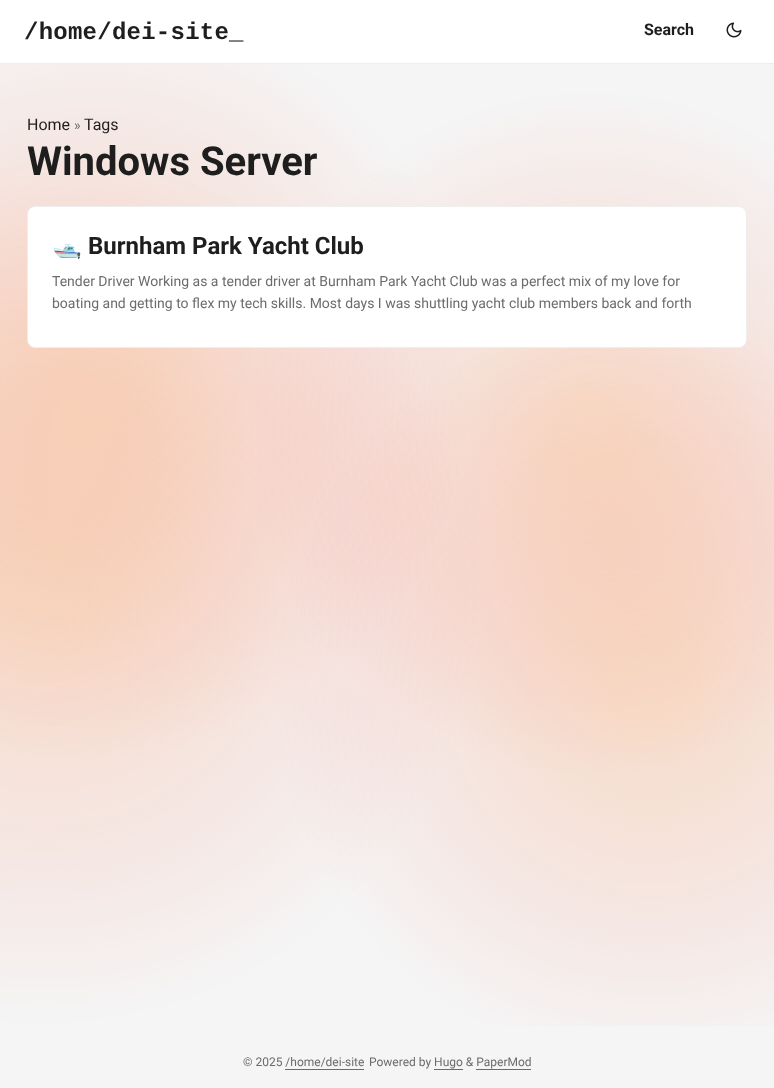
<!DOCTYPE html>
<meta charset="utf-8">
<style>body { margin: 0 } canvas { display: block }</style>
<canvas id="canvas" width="774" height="1088"></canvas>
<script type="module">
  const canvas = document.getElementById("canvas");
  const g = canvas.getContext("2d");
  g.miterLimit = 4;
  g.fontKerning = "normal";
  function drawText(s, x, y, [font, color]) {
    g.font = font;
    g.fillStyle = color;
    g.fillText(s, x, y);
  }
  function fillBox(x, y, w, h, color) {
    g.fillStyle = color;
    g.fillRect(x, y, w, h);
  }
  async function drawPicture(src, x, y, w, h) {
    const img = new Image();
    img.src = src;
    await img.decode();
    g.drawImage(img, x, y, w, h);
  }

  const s1 = ["bold 24px Liberation Mono", "#1E1E1E"];
  const s2 = ["bold 16px Roboto", "#1E1E1E"];
  const s3 = ["16px Roboto", "#1E1E1E"];
  const s4 = ["14px Roboto", "#6C6C6C"];
  const s5 = ["bold 40px Roboto", "#1E1E1E"];
  const s6 = ["bold 24px Noto Color Emoji", "#1E1E1E"];
  const s7 = ["bold 24px Roboto", "#1E1E1E"];
  const s8 = ["12px Roboto", "#6C6C6C"];

  fillBox(0, 0, 774, 1088, "#F5F5F5");
  fillBox(0, 0, 774, 63, "#FFFFFF");
  fillBox(0, 63, 774, 1, "#EEEEEE");
  g.letterSpacing = "0.25px";
  drawText("/home/dei-site", 24, 39, s1);
  drawText("_", 229, 39, s1);
  g.letterSpacing = "0px";
  drawText("Search", 644, 35, s2);
  await drawPicture("pic1.png", 726, 22, 16, 16);
  await drawPicture("pic2.png", 0, 64, 774, 962);
  drawText("Home", 27, 130, s3);
  drawText("»", 74, 130, s4);
  drawText("Tags", 84, 130, s3);
  drawText("Windows Server", 27, 175, s5);
  g.fillStyle = "#FFFFFF";
  g.beginPath();
  g.roundRect(27.5, 206.5, 719, 141, 7.5);
  g.fill();
  g.strokeStyle = "#EEEEEE";
  g.stroke();
  drawText("🛥️", 52, 254, s6);
  drawText("Burnham Park Yacht Club", 88, 254, s7);
  drawText("Tender Driver Working as a tender driver at Burnham Park Yacht Club was a perfect mix of my love for", 52, 286, s4);
  drawText("boating and getting to flex my tech skills. Most days I was shuttling yacht club members back and forth", 52, 308, s4);
  drawText("© 2025 /home/dei-site", 243, 1066, s8);
  fillBox(285, 1069, 79, 1, "#6C6C6C");
  drawText("Powered by Hugo & PaperMod", 369, 1066, s8);
  fillBox(434, 1069, 29, 1, "#6C6C6C");
  fillBox(476, 1069, 55, 1, "#6C6C6C");
</script>
